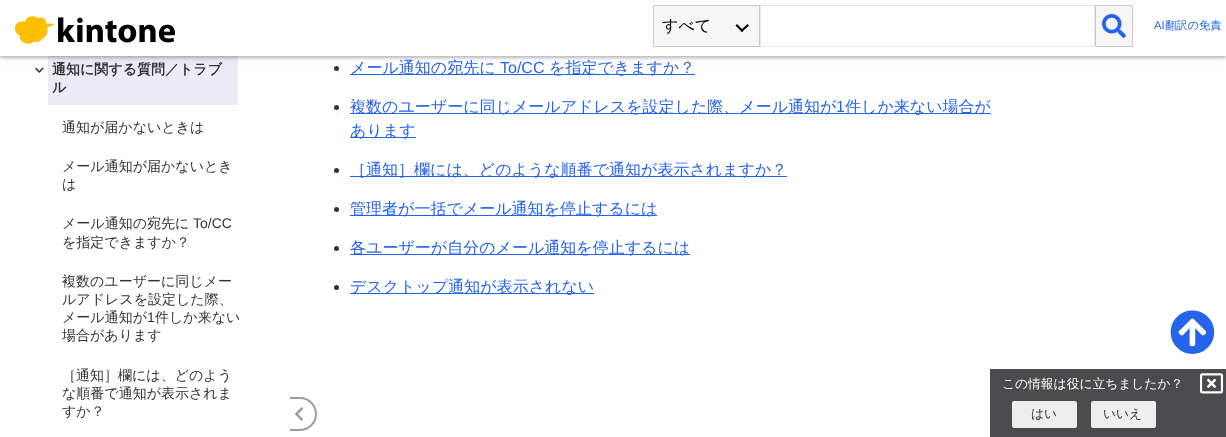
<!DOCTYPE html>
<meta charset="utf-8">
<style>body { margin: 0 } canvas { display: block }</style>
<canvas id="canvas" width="1226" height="437"></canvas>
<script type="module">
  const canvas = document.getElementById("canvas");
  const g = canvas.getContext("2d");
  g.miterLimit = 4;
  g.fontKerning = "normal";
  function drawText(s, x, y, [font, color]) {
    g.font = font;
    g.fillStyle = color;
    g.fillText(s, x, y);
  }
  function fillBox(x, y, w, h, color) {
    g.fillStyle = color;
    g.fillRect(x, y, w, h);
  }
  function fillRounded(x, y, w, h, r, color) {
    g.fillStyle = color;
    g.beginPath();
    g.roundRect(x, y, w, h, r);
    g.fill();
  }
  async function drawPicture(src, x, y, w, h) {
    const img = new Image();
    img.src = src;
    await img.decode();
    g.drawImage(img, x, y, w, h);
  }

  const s1 = ["500 16px WenQuanYi Zen Hei", "#000000"];
  const s2 = ["11.25px Liberation Sans", "#2563EB"];
  const s3 = ["500 11.25px WenQuanYi Zen Hei", "#2563EB"];
  const s4 = ["bold 14px WenQuanYi Zen Hei", "#333333"];
  const s5 = ["500 14px WenQuanYi Zen Hei", "#333333"];
  const s6 = ["14px Liberation Sans", "#333333"];
  const s7 = ["500 16px WenQuanYi Zen Hei", "#2563EB"];
  const s8 = ["16px Liberation Sans", "#2563EB"];
  const s9 = ["500 12.75px WenQuanYi Zen Hei", "#FFFFFF"];
  const s10 = ["500 12.75px WenQuanYi Zen Hei", "#333333"];

  fillBox(0, 0, 1226, 437, "#FFFFFF");
  await drawPicture("pic3.png", 35, 67, 9, 6);
  fillBox(48, 56, 190, 49, "#ECEAF7");
  g.fillStyle = "#333333";
  g.beginPath();
  g.arc(336.5, 68.5, 2.5, 0, Math.PI * 2);
  g.fill();
  g.fillStyle = "rgba(0, 0, 0, 0.05)";
  g.filter = "blur(4px)";
  g.beginPath();
  g.rect(0, 3, 1226, 56);
  g.fill();
  g.filter = "none";
  g.fillStyle = "rgba(0, 0, 0, 0.24)";
  g.filter = "blur(1.5px)";
  g.beginPath();
  g.rect(0, 2, 1226, 56);
  g.fill();
  g.filter = "none";
  fillBox(0, 0, 1226, 56, "#FFFFFF");
  await drawPicture("pic1.png", 15, 16, 160, 28);
  g.fillStyle = "#F6F6F6";
  g.beginPath();
  g.rect(653.5, 5.5, 106, 41);
  g.fill();
  g.strokeStyle = "#C9C9C9";
  g.stroke();
  drawText("すべて", 662, 31, s1);
  g.beginPath();
  g.moveTo(749, 25.5);
  g.lineTo(742, 32);
  g.lineTo(740.5, 30.5);
  g.lineTo(747.5, 24);
  g.closePath();
  g.fill();
  g.beginPath();
  g.moveTo(743.5, 30.5);
  g.lineTo(742, 32);
  g.lineTo(735.5, 25.5);
  g.lineTo(737, 24);
  g.closePath();
  g.fill();
  g.strokeStyle = "#E6E6E6";
  g.strokeRect(760.5, 5.5, 334, 41);
  g.fillStyle = "#F6F6F6";
  g.beginPath();
  g.rect(1095.5, 5.5, 37, 41);
  g.fill();
  g.strokeStyle = "#C9C9C9";
  g.stroke();
  await drawPicture("pic2.png", 1102, 14, 24, 24);
  drawText("AI", 1154, 29, s2);
  drawText("翻訳の免責", 1165, 29, s3);
  g.beginPath();
  g.roundRect(284, 398, 32, 32, [0, 16, 16, 0]);
  g.strokeStyle = "#9E9E9E";
  g.lineWidth = 2;
  g.stroke();
  fillBox(283, 397, 7, 34, "#FFFFFF");
  drawText("通知に関する質問／トラブ", 52, 74, s4);
  drawText("ル", 52, 92, s4);
  drawText("通知が届かないときは", 62, 132, s5);
  drawText("メール通知が届かないとき", 62, 171, s5);
  drawText("は", 62, 189, s5);
  drawText("メール通知の宛先に", 62, 228, s5);
  drawText("To/CC", 193, 228, s6);
  drawText("を指定できますか？", 62, 247, s5);
  drawText("複数のユーザーに同じメー", 62, 286, s5);
  drawText("ルアドレスを設定した際、", 62, 304, s5);
  drawText("メール通知が", 62, 322, s5);
  drawText("1", 147, 322, s6);
  drawText("件しか来ない", 155, 322, s5);
  drawText("場合があります", 62, 340, s5);
  drawText("［通知］欄には、どのよう", 62, 380, s5);
  drawText("な順番で通知が表示されま", 62, 398, s5);
  drawText("すか？", 62, 416, s5);
  fillBox(350, 74, 345, 1, "#2563EB");
  drawText("メール通知の宛先に", 350, 73, s7);
  drawText("To/CC", 500, 73, s8);
  drawText("を指定できますか？", 549, 73, s7);
  g.fillStyle = "#333333";
  g.beginPath();
  g.arc(336.5, 107.5, 2.5, 0, Math.PI * 2);
  g.fill();
  fillBox(350, 113, 641, 1, "#2563EB");
  drawText("複数のユーザーに同じメールアドレスを設定した際、メール通知が", 350, 112, s7);
  drawText("1", 836, 112, s8);
  drawText("件しか来ない場合が", 845, 112, s7);
  fillBox(350, 137, 66, 1, "#2563EB");
  drawText("あります", 350, 136, s7);
  g.fillStyle = "#333333";
  g.beginPath();
  g.arc(336.5, 170.5, 2.5, 0, Math.PI * 2);
  g.fill();
  fillBox(350, 176, 437, 1, "#2563EB");
  drawText("［通知］欄には、どのような順番で通知が表示されますか？", 350, 175, s7);
  g.fillStyle = "#333333";
  g.beginPath();
  g.arc(336.5, 209.5, 2.5, 0, Math.PI * 2);
  g.fill();
  fillBox(350, 215, 307, 1, "#2563EB");
  drawText("管理者が一括でメール通知を停止するには", 350, 214, s7);
  g.fillStyle = "#333333";
  g.beginPath();
  g.arc(336.5, 248.5, 2.5, 0, Math.PI * 2);
  g.fill();
  fillBox(350, 254, 340, 1, "#2563EB");
  drawText("各ユーザーが自分のメール通知を停止するには", 350, 253, s7);
  g.fillStyle = "#333333";
  g.beginPath();
  g.arc(336.5, 287.5, 2.5, 0, Math.PI * 2);
  g.fill();
  fillBox(350, 293, 244, 1, "#2563EB");
  drawText("デスクトップ通知が表示されない", 350, 292, s7);
  await drawPicture("pic4.png", 1170, 310, 45, 44);
  fillBox(990, 369, 236, 68, "#4A4B4C");
  drawText("この情報は役に立ちましたか？", 1002, 388, s9);
  await drawPicture("pic5.png", 1200, 373, 24, 21);
  fillRounded(1012, 401, 65, 27, 2, "#EEEEEE");
  drawText("はい", 1031, 418, s10);
  fillRounded(1091, 401, 65, 27, 2, "#EEEEEE");
  drawText("いいえ", 1103, 418, s10);
  await drawPicture("pic6.png", 295, 407, 9, 14);
</script>
